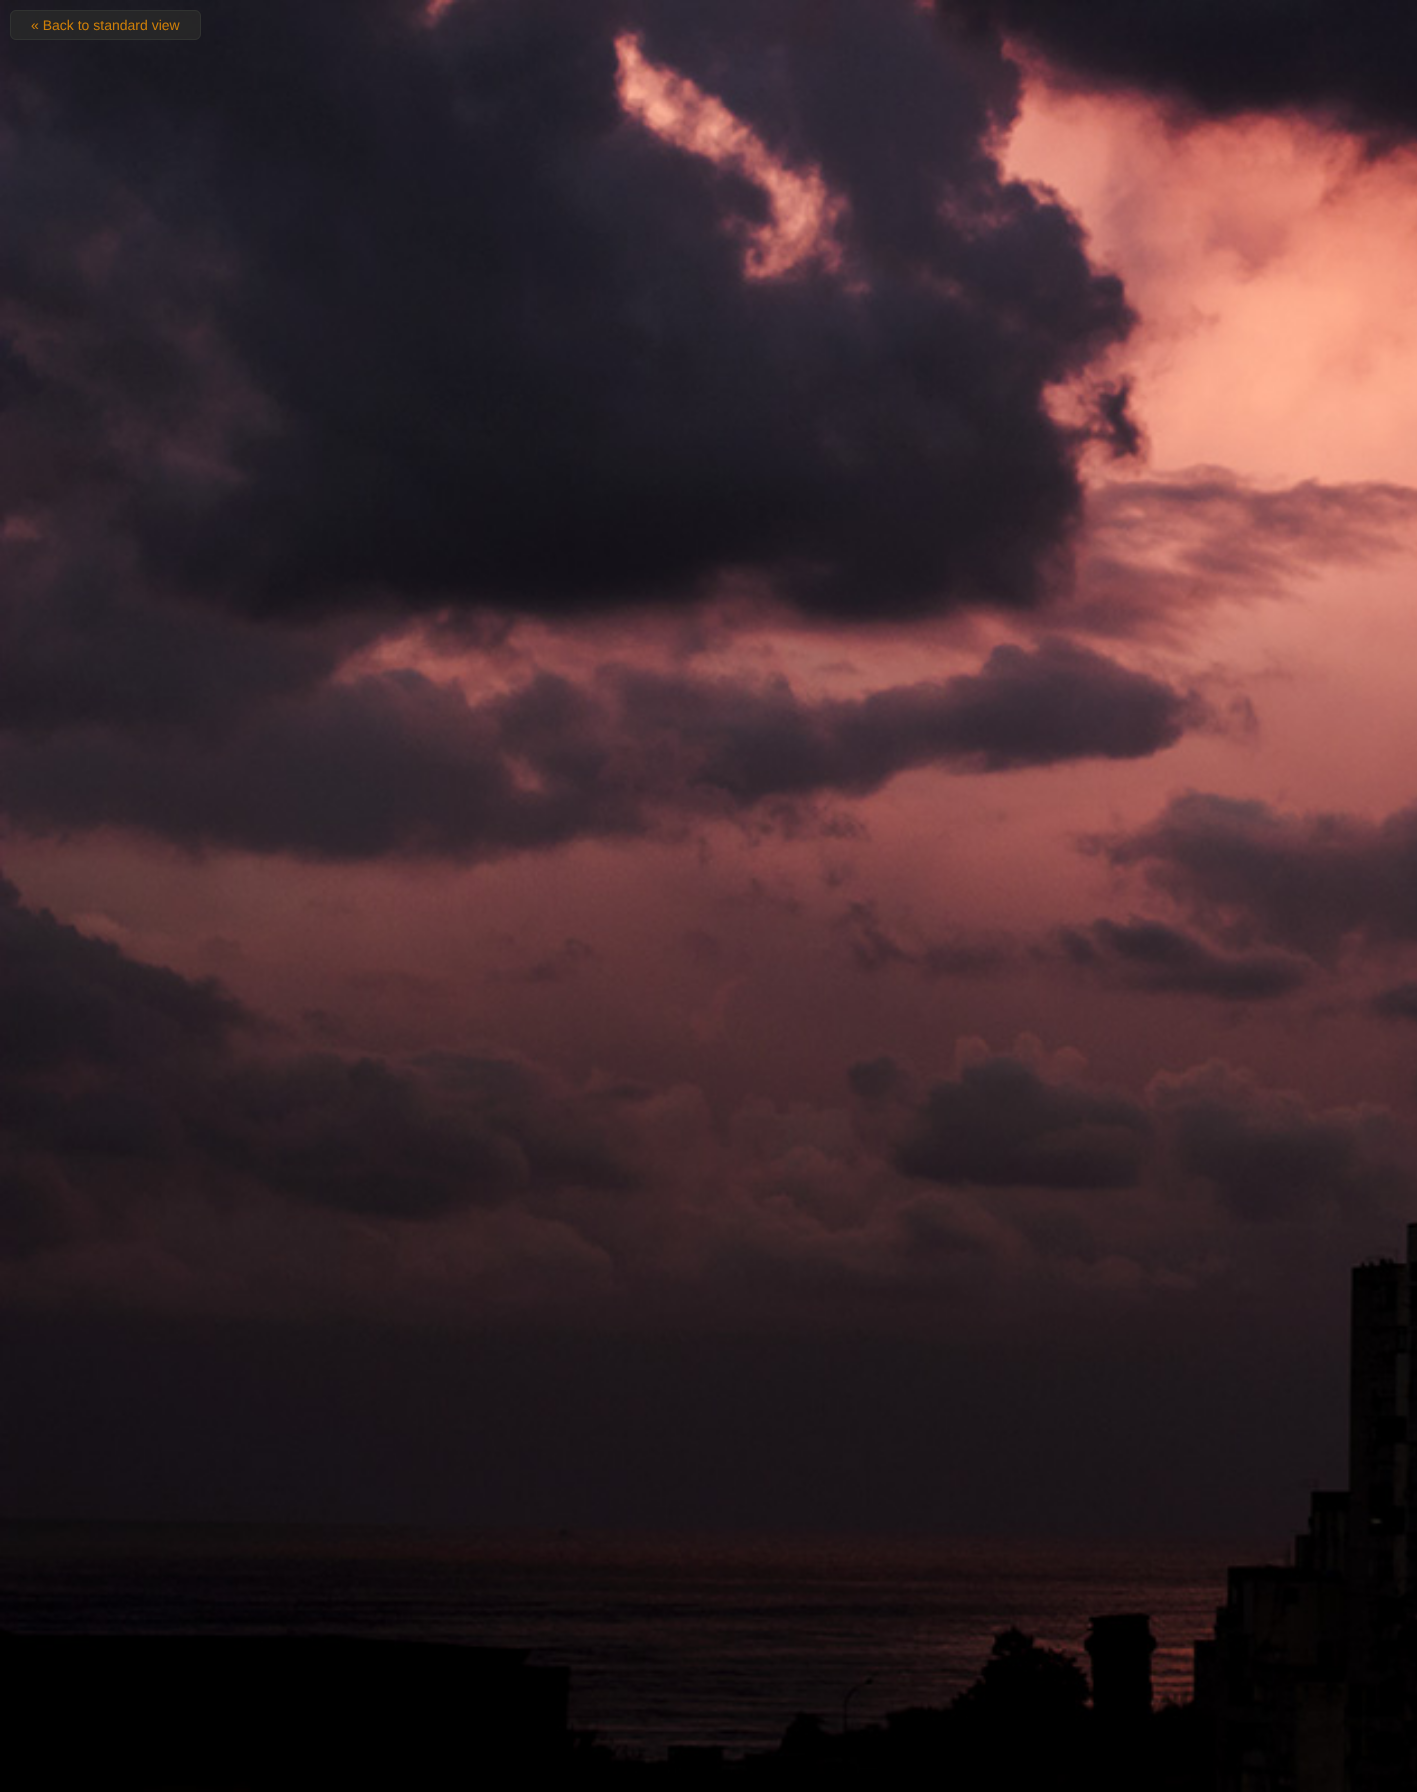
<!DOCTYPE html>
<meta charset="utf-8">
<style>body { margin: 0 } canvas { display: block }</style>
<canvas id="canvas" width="1417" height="1792"></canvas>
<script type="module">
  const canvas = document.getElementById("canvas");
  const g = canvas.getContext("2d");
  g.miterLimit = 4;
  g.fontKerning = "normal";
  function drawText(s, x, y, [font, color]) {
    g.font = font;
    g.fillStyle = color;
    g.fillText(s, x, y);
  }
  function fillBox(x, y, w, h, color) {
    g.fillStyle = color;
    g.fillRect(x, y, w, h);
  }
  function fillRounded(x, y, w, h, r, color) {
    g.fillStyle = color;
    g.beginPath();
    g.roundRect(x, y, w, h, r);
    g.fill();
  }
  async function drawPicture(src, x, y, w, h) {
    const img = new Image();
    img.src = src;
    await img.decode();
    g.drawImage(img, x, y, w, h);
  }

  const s1 = ["14px Liberation Sans", "#D08008"];

  fillBox(0, 0, 1417, 1792, "#FFFFFF");
  await drawPicture("pic1.png", 0, 0, 1417, 1792);
  fillRounded(10, 10, 191, 30, 6, "rgba(41, 41, 41, 0.8)");
  g.beginPath();
  g.roundRect(10.5, 10.5, 190, 29, 5.5);
  g.strokeStyle = "rgba(53, 55, 53, 0.8)";
  g.stroke();
  drawText("« Back to standard view", 31, 30, s1);
</script>
